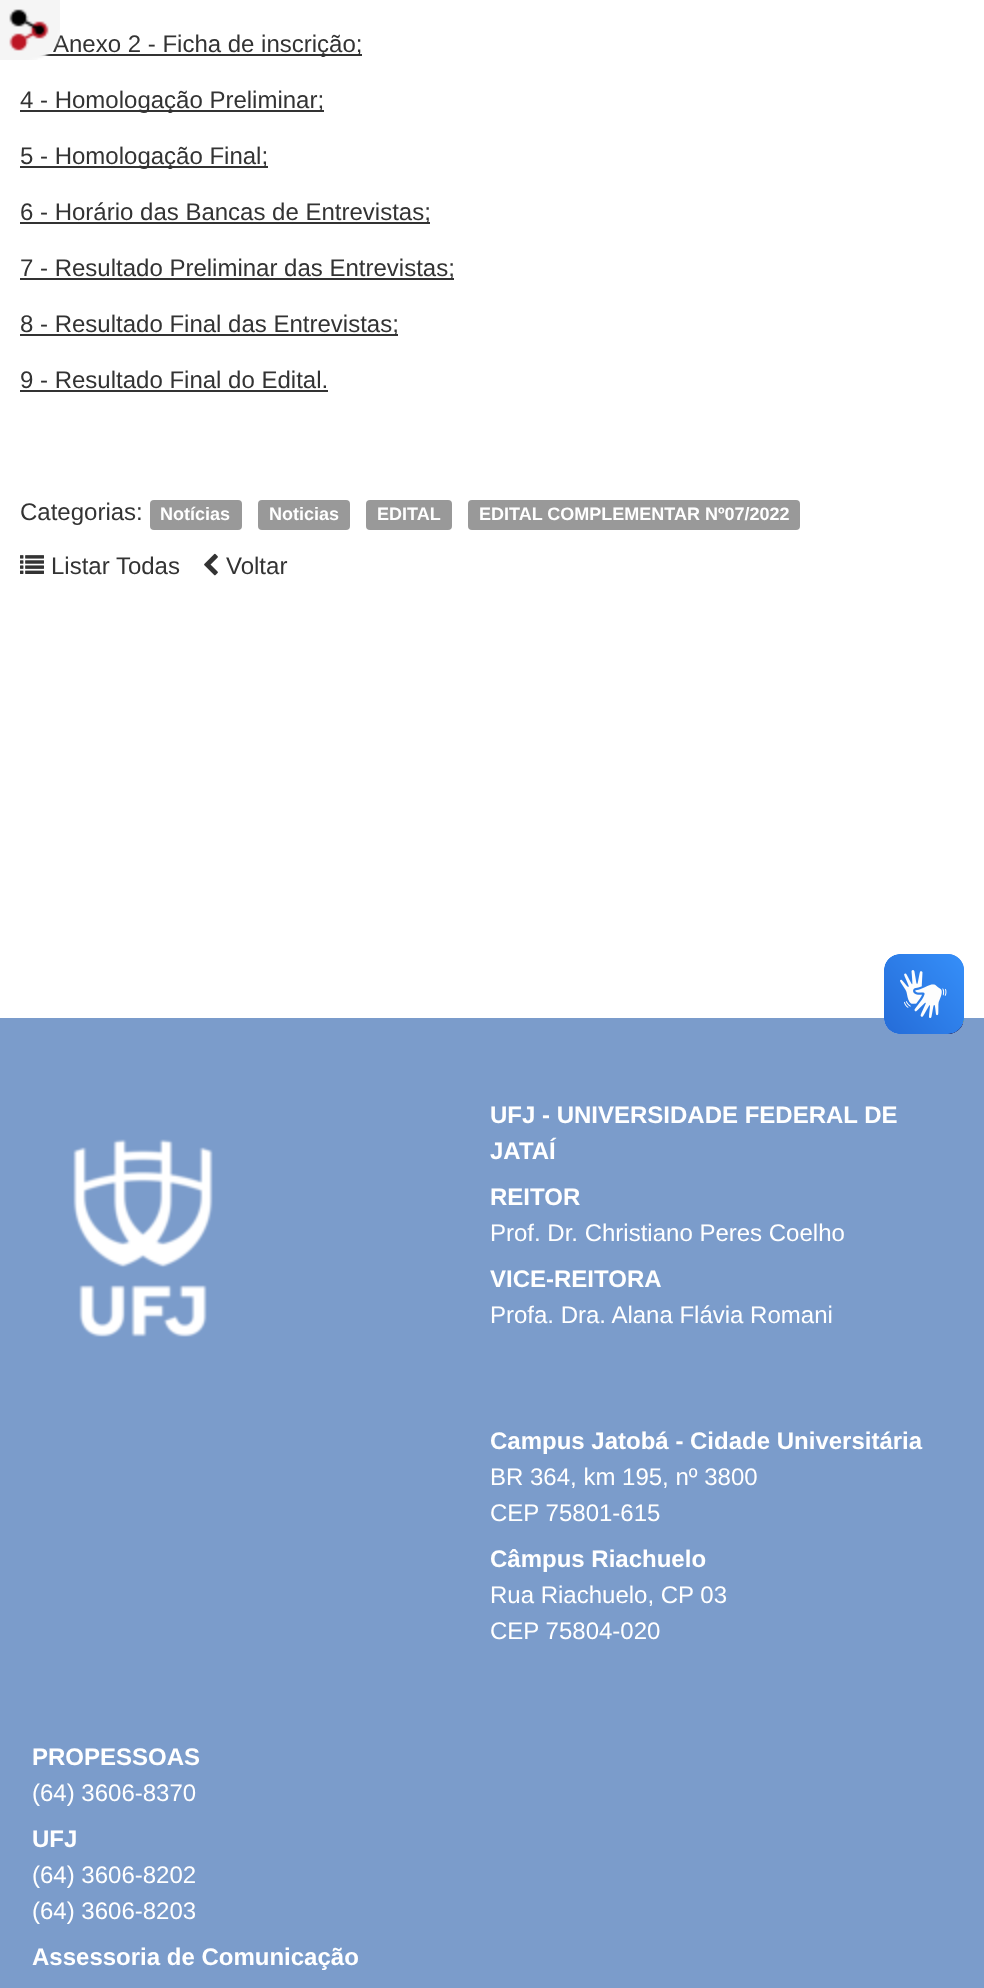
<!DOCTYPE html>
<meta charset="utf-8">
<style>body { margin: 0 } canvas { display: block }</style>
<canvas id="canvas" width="984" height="1988"></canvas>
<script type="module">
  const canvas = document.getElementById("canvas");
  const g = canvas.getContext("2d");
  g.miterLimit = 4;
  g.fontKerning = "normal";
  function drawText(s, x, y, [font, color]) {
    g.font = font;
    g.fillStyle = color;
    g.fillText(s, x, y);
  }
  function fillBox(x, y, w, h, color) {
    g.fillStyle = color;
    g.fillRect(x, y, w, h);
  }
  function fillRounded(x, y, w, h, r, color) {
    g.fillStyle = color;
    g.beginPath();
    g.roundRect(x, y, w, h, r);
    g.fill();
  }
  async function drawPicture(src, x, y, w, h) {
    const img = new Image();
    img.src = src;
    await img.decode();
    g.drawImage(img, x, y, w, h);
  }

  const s1 = ["24px Liberation Sans", "#333333"];
  const s2 = ["bold 18px Liberation Sans", "#FFFFFF"];
  const s3 = ["bold 24px Liberation Sans", "#FFFFFF"];
  const s4 = ["24px Liberation Sans", "#FFFFFF"];

  fillBox(0, 0, 984, 1988, "#FFFFFF");
  fillBox(39, 54, 323, 2, "#333333");
  drawText("Anexo 2 - Ficha de inscrição;", 53, 52, s1);
  await drawPicture("pic1.png", 0, 0, 60, 60);
  fillBox(20, 110, 304, 2, "#333333");
  drawText("4 - Homologação Preliminar;", 20, 108, s1);
  fillBox(20, 166, 248, 2, "#333333");
  drawText("5 - Homologação Final;", 20, 164, s1);
  fillBox(20, 222, 410, 2, "#333333");
  drawText("6 - Horário das Bancas de Entrevistas;", 20, 220, s1);
  fillBox(20, 278, 434, 2, "#333333");
  drawText("7 - Resultado Preliminar das Entrevistas;", 20, 276, s1);
  fillBox(20, 334, 378, 2, "#333333");
  drawText("8 - Resultado Final das Entrevistas;", 20, 332, s1);
  drawText("9 - Resultado Final do Edital.", 20, 388, s1);
  fillBox(20, 390, 308, 2, "#333333");
  drawText("Categorias:", 20, 520, s1);
  fillRounded(150, 500, 92, 30, 4, "#999999");
  drawText("Notícias", 160, 520, s2);
  fillRounded(258, 500, 92, 30, 4, "#999999");
  drawText("Noticias", 269, 520, s2);
  fillRounded(366, 500, 86, 30, 4, "#999999");
  drawText("EDITAL", 377, 520, s2);
  fillRounded(468, 500, 332, 30, 4, "#999999");
  drawText("EDITAL COMPLEMENTAR Nº07/2022", 479, 520, s2);
  await drawPicture("pic2.png", 20, 555, 24, 19);
  drawText("Listar Todas", 51, 574, s1);
  await drawPicture("pic3.png", 204, 553, 14, 23);
  drawText("Voltar", 226, 574, s1);
  fillBox(0, 1018, 984, 970, "#7B9CCB");
  await drawPicture("pic4.png", 884, 954, 80, 80);
  await drawPicture("pic5.png", 884, 954, 80, 80);
  await drawPicture("pic6.png", 73, 1139, 140, 198);
  drawText("UFJ - UNIVERSIDADE FEDERAL DE", 490, 1123, s3);
  drawText("JATAÍ", 490, 1159, s3);
  drawText("REITOR", 490, 1205, s3);
  drawText("Prof. Dr. Christiano Peres Coelho", 490, 1241, s4);
  drawText("VICE-REITORA", 490, 1287, s3);
  drawText("Profa. Dra. Alana Flávia Romani", 490, 1323, s4);
  drawText("Campus Jatobá - Cidade Universitária", 490, 1449, s3);
  drawText("BR 364, km 195, nº 3800", 490, 1485, s4);
  drawText("CEP 75801-615", 490, 1521, s4);
  drawText("Câmpus Riachuelo", 490, 1567, s3);
  drawText("Rua Riachuelo, CP 03", 490, 1603, s4);
  drawText("CEP 75804-020", 490, 1639, s4);
  drawText("PROPESSOAS", 32, 1765, s3);
  drawText("(64) 3606-8370", 32, 1801, s4);
  drawText("UFJ", 32, 1847, s3);
  drawText("(64) 3606-8202", 32, 1883, s4);
  drawText("(64) 3606-8203", 32, 1919, s4);
  drawText("Assessoria de Comunicação", 32, 1965, s3);
</script>
